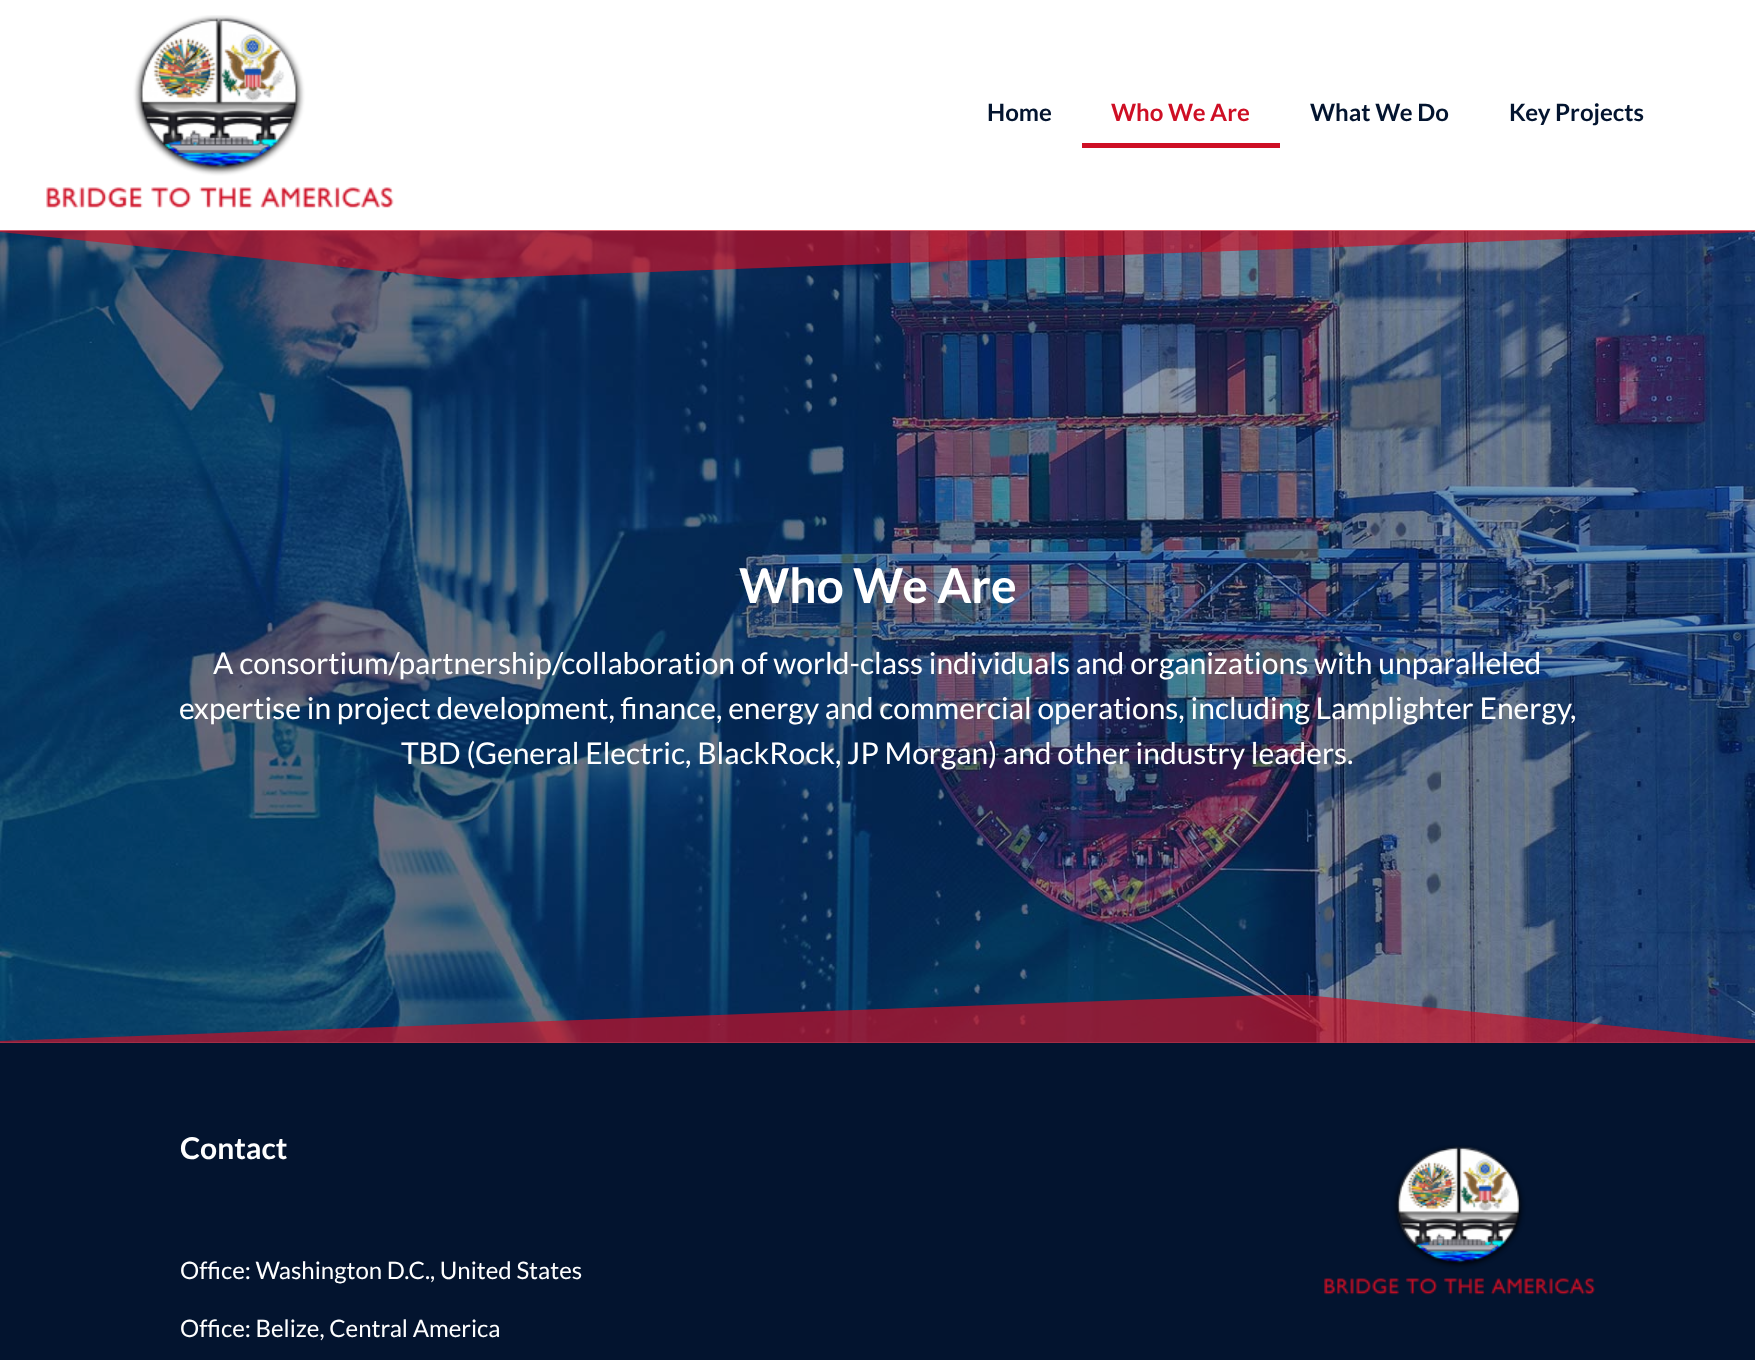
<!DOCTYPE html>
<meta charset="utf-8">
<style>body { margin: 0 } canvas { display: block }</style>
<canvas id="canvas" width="1755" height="1360"></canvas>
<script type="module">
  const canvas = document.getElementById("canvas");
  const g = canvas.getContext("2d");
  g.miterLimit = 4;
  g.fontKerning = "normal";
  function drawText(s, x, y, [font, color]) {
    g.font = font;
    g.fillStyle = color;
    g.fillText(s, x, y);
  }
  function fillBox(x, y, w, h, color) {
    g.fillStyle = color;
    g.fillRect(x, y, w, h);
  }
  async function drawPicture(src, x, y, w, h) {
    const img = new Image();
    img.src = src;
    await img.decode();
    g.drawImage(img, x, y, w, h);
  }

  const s1 = ["bold 24px Lato", "#03142F"];
  const s2 = ["bold 24px Lato", "#CE0F25"];
  const s3 = ["bold 48px Lato", "#FFFFFF"];
  const s4 = ["30px Lato", "#FFFFFF"];
  const s5 = ["bold 30px Lato", "#FFFFFF"];
  const s6 = ["24px Lato", "#FFFFFF"];

  fillBox(0, 0, 1755, 1360, "#FFFFFF");
  fillBox(0, 1042, 1755, 1, "#8A9AB3");
  await drawPicture("pic1.png", 46, 15, 348, 193);
  drawText("Home", 987, 121, s1);
  drawText("Who We Are", 1111, 121, s2);
  fillBox(1082, 143, 198, 5, "#CE0F25");
  drawText("What We Do", 1310, 121, s1);
  drawText("Key Projects", 1509, 121, s1);
  await drawPicture("pic2.png", 0, 231, 1755, 812);
  g.fillStyle = "rgba(206, 15, 37, 0.67)";
  g.beginPath();
  g.moveTo(459, 279);
  g.lineTo(-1, 232);
  g.lineTo(-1, 230);
  g.lineTo(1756, 230);
  g.lineTo(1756, 232);
  g.closePath();
  g.fill();
  drawText("Who We Are", 739, 603, s3);
  drawText("A consortium/partnership/collaboration of world-class individuals and organizations with unparalleled", 213, 674, s4);
  drawText("expertise in project development, finance, energy and commercial operations, including Lamplighter Energy,", 179, 719, s4);
  drawText("TBD (General Electric, BlackRock, JP Morgan) and other industry leaders.", 401, 764, s4);
  g.save();
  g.beginPath();
  g.rect(0, 995, 1755, 49);
  g.clip();
  g.fillStyle = "rgba(206, 15, 37, 0.67)";
  g.beginPath();
  g.moveTo(1296, 994);
  g.lineTo(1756, 1040);
  g.lineTo(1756, 1043);
  g.lineTo(-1, 1043);
  g.lineTo(-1, 1041);
  g.closePath();
  g.fill();
  g.restore();
  fillBox(0, 1043, 1755, 317, "#03142F");
  drawText("Contact", 180, 1159, s5);
  drawText("Office: Washington D.C., United States", 180, 1279, s6);
  drawText("Office: Belize, Central America", 180, 1337, s6);
  await drawPicture("pic3.png", 1324, 1145, 271, 150);
</script>
